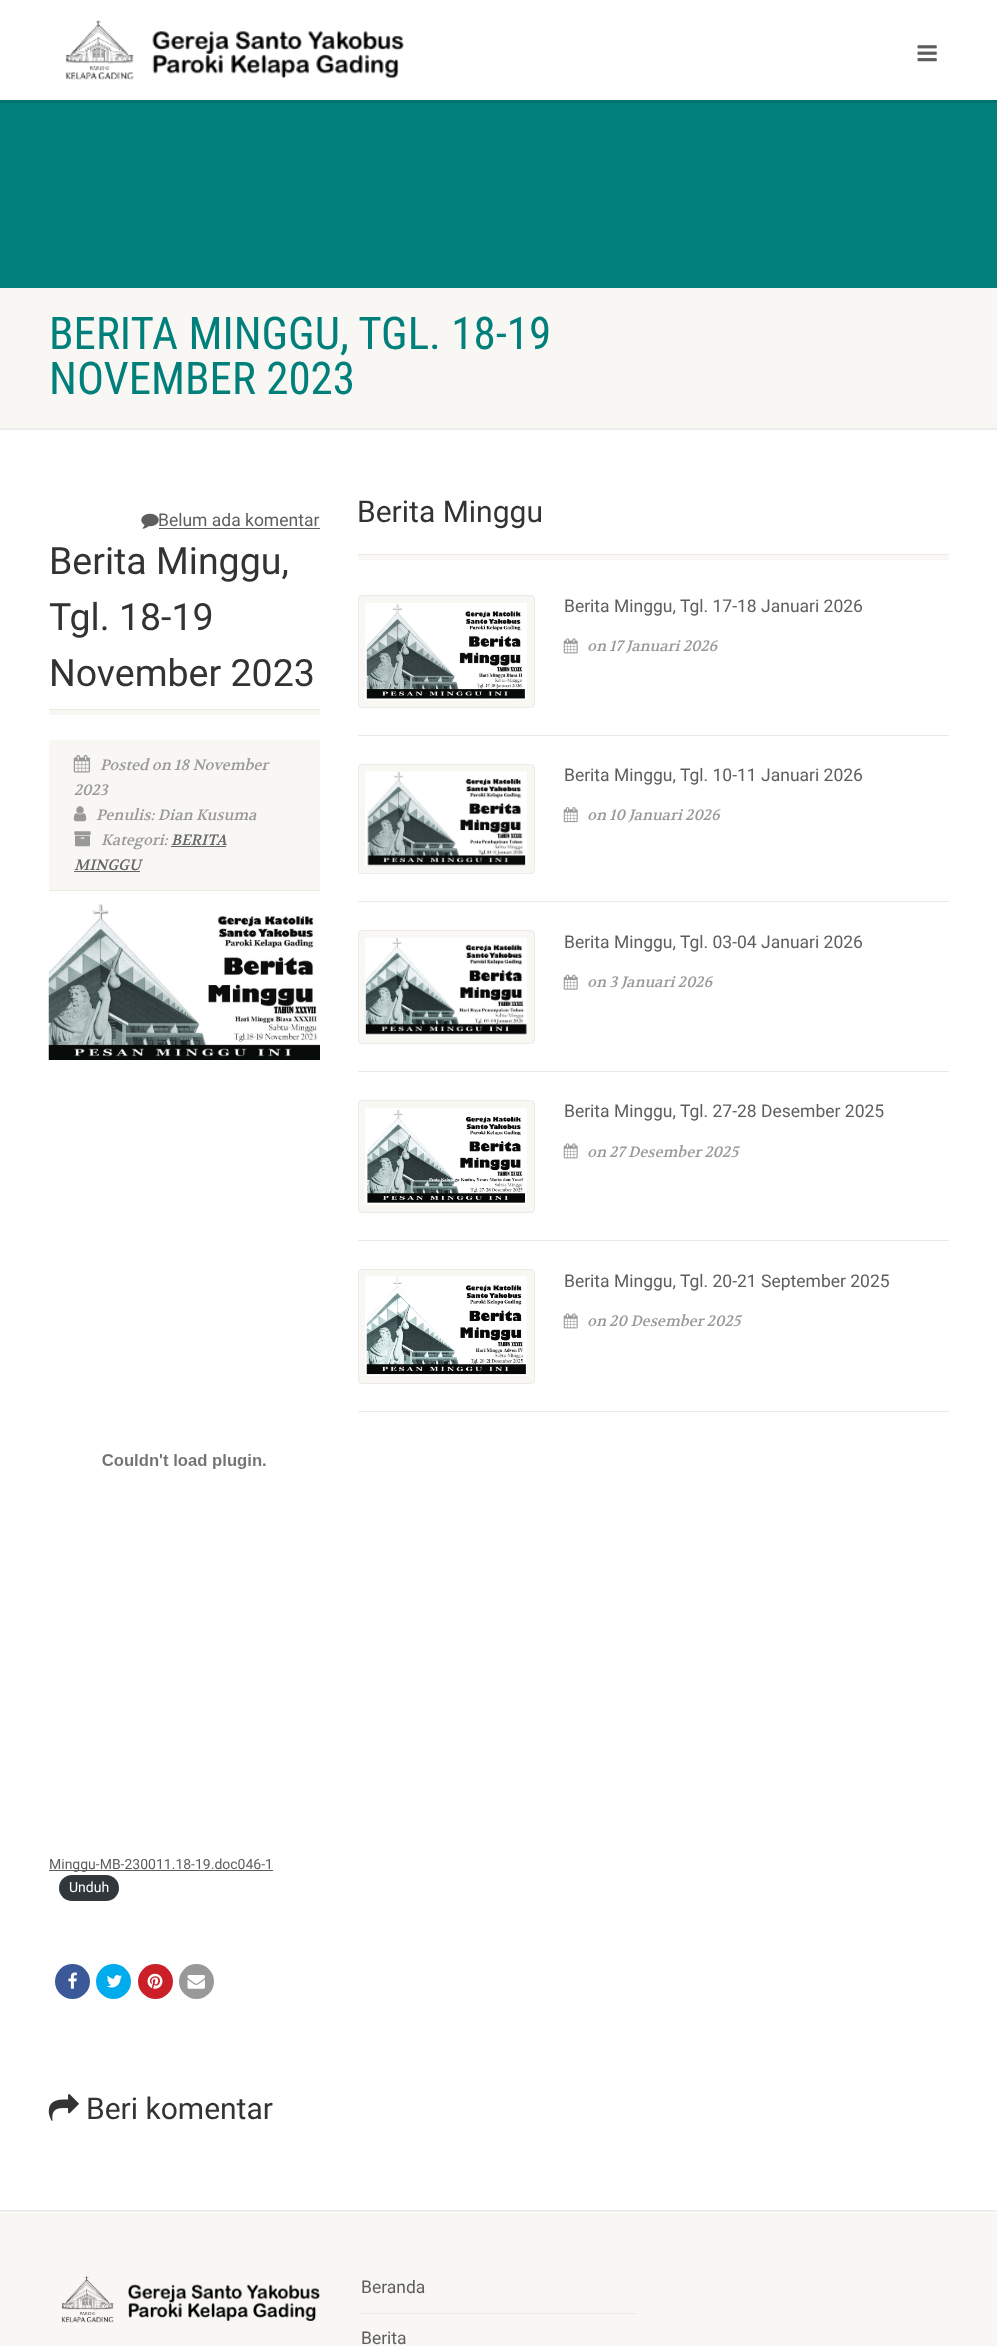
<!DOCTYPE html>
<meta charset="utf-8">
<style>body { margin: 0 } canvas { display: block }</style>
<canvas id="canvas" width="997" height="2346"></canvas>
<script type="module">
  const canvas = document.getElementById("canvas");
  const g = canvas.getContext("2d");
  g.miterLimit = 4;
  g.fontKerning = "normal";
  function drawText(s, x, y, [font, color]) {
    g.font = font;
    g.fillStyle = color;
    g.fillText(s, x, y);
  }
  function fillBox(x, y, w, h, color) {
    g.fillStyle = color;
    g.fillRect(x, y, w, h);
  }
  function fillRounded(x, y, w, h, r, color) {
    g.fillStyle = color;
    g.beginPath();
    g.roundRect(x, y, w, h, r);
    g.fill();
  }
  async function drawPicture(src, x, y, w, h) {
    const img = new Image();
    img.src = src;
    await img.decode();
    g.drawImage(img, x, y, w, h);
  }

  const s1 = ["45px Roboto Condensed", "#007F7B"];
  const s2 = ["17.5px Roboto", "#5E5E5E"];
  const s3 = ["37.5px Roboto", "#333333"];
  const s4 = ["italic 15px Volkhov", "#999999"];
  const s5 = ["italic 15px Volkhov", "#666666"];
  const s6 = ["14px Roboto", "#5E5E5E"];
  const s7 = ["14px Roboto", "#FFFFFF"];
  const s8 = ["30px Roboto", "#333333"];

  fillBox(0, 0, 997, 2346, "#FFFFFF");
  g.fillStyle = "#00726F";
  g.beginPath();
  g.moveTo(0, 100);
  g.lineTo(0, 103);
  g.lineTo(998, 103);
  g.lineTo(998, 3);
  g.lineTo(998, 100);
  g.closePath();
  g.fill();
  await drawPicture("pic1.png", 65, 20, 339, 60);
  await drawPicture("pic2.png", 917, 45, 20, 17);
  fillBox(0, 103, 997, 185, "#007F7B");
  g.fillStyle = "#EDEDED";
  g.beginPath();
  g.moveTo(0, 428);
  g.lineTo(0, 430);
  g.lineTo(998, 430);
  g.lineTo(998, 290);
  g.lineTo(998, 428);
  g.closePath();
  g.fill();
  fillBox(0, 288, 997, 140, "#F8F7F3");
  drawText("BERITA MINGGU, TGL. 18-19", 49, 349, s1);
  drawText("NOVEMBER 2023", 49, 394, s1);
  await drawPicture("pic3.png", 141, 513, 18, 16);
  drawText("Belum ada komentar", 158, 526, s2);
  fillBox(159, 528, 161, 1, "#5E5E5E");
  fillBox(49, 709, 271, 1, "#ECEAE4");
  drawText("Berita Minggu,", 49, 574, s3);
  drawText("Tgl. 18-19", 49, 630, s3);
  drawText("November 2023", 49, 686, s3);
  fillBox(49, 710, 271, 5, "#F8F7F3");
  fillBox(49, 740, 271, 150, "#F8F7F3");
  fillBox(49, 890, 271, 1, "#ECEAE4");
  await drawPicture("pic4.png", 73, 755, 17, 18);
  drawText("Posted on 18 November", 100, 770, s4);
  drawText("2023", 74, 795, s4);
  await drawPicture("pic5.png", 73, 806, 14, 16);
  drawText("Penulis: Dian Kusuma", 96, 820, s4);
  await drawPicture("pic6.png", 74, 831, 17, 16);
  drawText("Kategori:", 101, 845, s4);
  drawText("BERITA", 171, 845, s5);
  fillBox(171, 846, 55, 1, "#666666");
  drawText("MINGGU", 74, 870, s5);
  fillBox(74, 871, 66, 1, "#666666");
  await drawPicture("pic7.png", 48, 904, 272, 156);
  await drawPicture("pic8.png", 102, 1454, 164, 15);
  fillBox(49, 1870, 224, 1, "#5E5E5E");
  drawText("Minggu-MB-230011.18-19.doc046-1", 49, 1869, s6);
  fillRounded(59, 1875, 60, 26, 13, "#32373C");
  drawText("Unduh", 69, 1892, s7);
  g.fillStyle = "#3B5998";
  g.beginPath();
  g.arc(72.5, 1981.5, 17.5, 0, Math.PI * 2);
  g.fill();
  await drawPicture("pic9.png", 68, 1972, 9, 17);
  g.fillStyle = "#00ACED";
  g.beginPath();
  g.arc(113.5, 1981.5, 17.5, 0, Math.PI * 2);
  g.fill();
  await drawPicture("pic10.png", 106, 1975, 16, 13);
  g.fillStyle = "#CB2027";
  g.beginPath();
  g.arc(155.5, 1981.5, 17.5, 0, Math.PI * 2);
  g.fill();
  await drawPicture("pic11.png", 147, 1973, 16, 16);
  g.fillStyle = "#999999";
  g.beginPath();
  g.arc(196.5, 1981.5, 17.5, 0, Math.PI * 2);
  g.fill();
  await drawPicture("pic12.png", 187, 1975, 18, 14);
  await drawPicture("pic13.png", 48, 2094, 31, 27);
  drawText("Beri komentar", 86, 2119, s8);
  fillBox(358, 555, 591, 5, "#F8F7F3");
  fillBox(358, 554, 591, 1, "#ECEAE4");
  drawText("Berita Minggu", 357, 522, s8);
  fillBox(358, 735, 591, 1, "#ECEAE4");
  g.fillStyle = "#F8F7F3";
  g.beginPath();
  g.roundRect(358.5, 595.5, 176, 112, 3.5);
  g.fill();
  g.strokeStyle = "#ECEAE4";
  g.stroke();
  await drawPicture("pic14.png", 365, 603, 162, 97);
  drawText("Berita Minggu, Tgl. 17-18 Januari 2026", 564, 612, s2);
  await drawPicture("pic15.png", 563, 638, 15, 16);
  drawText("on 17 Januari 2026", 587, 651, s4);
  fillBox(358, 901, 591, 1, "#ECEAE4");
  g.fillStyle = "#F8F7F3";
  g.beginPath();
  g.roundRect(358.5, 764.5, 176, 109, 3.5);
  g.fill();
  g.stroke();
  await drawPicture("pic16.png", 365, 771, 162, 95);
  drawText("Berita Minggu, Tgl. 10-11 Januari 2026", 564, 781, s2);
  await drawPicture("pic17.png", 563, 807, 15, 16);
  drawText("on 10 Januari 2026", 587, 820, s4);
  fillBox(358, 1071, 591, 1, "#ECEAE4");
  g.fillStyle = "#F8F7F3";
  g.beginPath();
  g.roundRect(358.5, 930.5, 176, 113, 3.5);
  g.fill();
  g.stroke();
  await drawPicture("pic18.png", 365, 937, 162, 99);
  drawText("Berita Minggu, Tgl. 03-04 Januari 2026", 564, 948, s2);
  await drawPicture("pic19.png", 563, 974, 15, 16);
  drawText("on 3 Januari 2026", 587, 987, s4);
  fillBox(358, 1240, 591, 1, "#ECEAE4");
  g.fillStyle = "#F8F7F3";
  g.beginPath();
  g.roundRect(358.5, 1100.5, 176, 112, 3.5);
  g.fill();
  g.stroke();
  await drawPicture("pic20.png", 365, 1108, 162, 97);
  drawText("Berita Minggu, Tgl. 27-28 Desember 2025", 564, 1117, s2);
  await drawPicture("pic15.png", 563, 1143, 15, 16);
  drawText("on 27 Desember 2025", 587, 1157, s4);
  fillBox(358, 1411, 591, 1, "#ECEAE4");
  g.fillStyle = "#F8F7F3";
  g.beginPath();
  g.roundRect(358.5, 1269.5, 176, 114, 3.5);
  g.fill();
  g.stroke();
  await drawPicture("pic21.png", 365, 1276, 162, 100);
  drawText("Berita Minggu, Tgl. 20-21 September 2025", 564, 1287, s2);
  await drawPicture("pic15.png", 563, 1313, 15, 16);
  drawText("on 20 Desember 2025", 587, 1326, s4);
  g.fillStyle = "#EDEDED";
  g.beginPath();
  g.moveTo(0, 2210);
  g.lineTo(0, 2212);
  g.lineTo(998, 2212);
  g.lineTo(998, 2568);
  g.lineTo(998, 2210);
  g.closePath();
  g.fill();
  fillBox(0, 2213, 997, 133, "#F8F7F3");
  await drawPicture("pic22.png", 61, 2276, 259, 47);
  fillBox(361, 2313, 275, 1, "#ECEAE4");
  drawText("Beranda", 361, 2293, s2);
  drawText("Berita", 361, 2344, s2);
</script>
